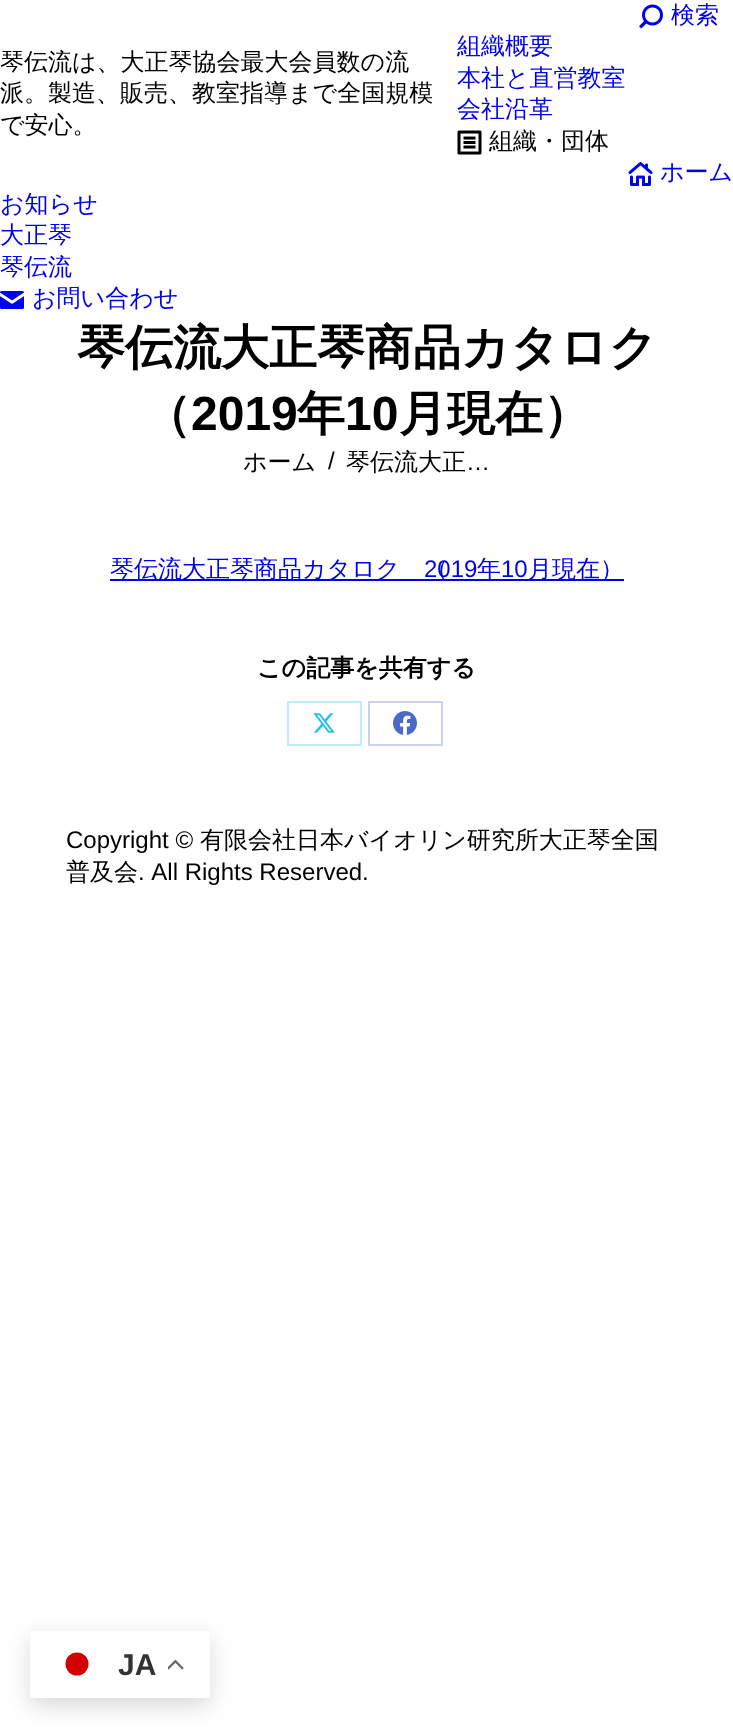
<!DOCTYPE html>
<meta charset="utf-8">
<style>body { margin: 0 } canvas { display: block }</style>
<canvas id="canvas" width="733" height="1734"></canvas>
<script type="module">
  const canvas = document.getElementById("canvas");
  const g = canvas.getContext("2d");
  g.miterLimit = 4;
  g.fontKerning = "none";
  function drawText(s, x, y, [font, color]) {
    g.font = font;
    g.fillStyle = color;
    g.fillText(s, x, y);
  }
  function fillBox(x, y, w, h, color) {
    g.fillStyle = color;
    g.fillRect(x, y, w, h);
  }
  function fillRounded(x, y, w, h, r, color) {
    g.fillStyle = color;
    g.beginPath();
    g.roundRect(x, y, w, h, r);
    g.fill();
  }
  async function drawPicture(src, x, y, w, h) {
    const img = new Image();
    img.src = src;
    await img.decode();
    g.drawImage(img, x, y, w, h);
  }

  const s1 = ["500 24px WenQuanYi Zen Hei", "#000000"];
  const s2 = ["500 24px WenQuanYi Zen Hei", "#0000EE"];
  const s3 = ["bold 48px WenQuanYi Zen Hei", "#000000"];
  const s4 = ["bold 48px Liberation Sans", "#000000"];
  const s5 = ["24px Liberation Sans", "#000000"];
  const s6 = ["24px Liberation Sans", "#0000EE"];
  const s7 = ["bold 24px WenQuanYi Zen Hei", "#000000"];
  const s8 = ["bold 30px Liberation Sans", "#333333"];

  fillBox(0, 0, 733, 1734, "#FFFFFF");
  drawText("琴伝流は、大正琴協会最大会員数の流", 0, 70, s1);
  drawText("派。製造、販売、教室指導まで全国規模", 0, 101, s1);
  drawText("で安心。", 0, 133, s1);
  await drawPicture("pic1.png", 639, 4, 24, 25);
  drawText("検索", 671, 23, s2);
  drawText("組織概要", 457, 54, s2);
  drawText("本社と直営教室", 457, 86, s2);
  drawText("会社沿革", 457, 117, s2);
  await drawPicture("pic2.png", 457, 130, 25, 25);
  drawText("組織・団体", 489, 149, s1);
  await drawPicture("pic3.png", 628, 162, 25, 24);
  drawText("ホーム", 660, 180, s2);
  drawText("お知らせ", 0, 212, s2);
  drawText("大正琴", 0, 243, s2);
  drawText("琴伝流", 0, 275, s2);
  await drawPicture("pic4.png", 0, 291, 24, 18);
  drawText("お問い合わせ", 32, 306, s2);
  drawText("琴伝流大正琴商品カタログ", 77, 364, s3);
  drawText("（", 143, 430, s3);
  drawText("2019", 191, 430, s4);
  drawText("年", 297, 430, s3);
  drawText("10", 345, 430, s4);
  drawText("月現在）", 399, 430, s3);
  drawText("ホーム", 243, 470, s1);
  drawText("/", 328, 469, s5);
  drawText("琴伝流大正", 346, 470, s1);
  drawText("…", 466, 470, s5);
  fillBox(110, 579, 514, 2, "#0000EE");
  drawText("琴伝流大正琴商品カタログ（", 110, 577, s2);
  drawText("2019", 424, 577, s6);
  drawText("年", 477, 577, s2);
  drawText("10", 501, 577, s6);
  drawText("月現在）", 528, 577, s2);
  drawText("この記事を共有する", 257, 676, s7);
  g.strokeStyle = "#BFECF9";
  g.lineWidth = 2;
  g.strokeRect(288, 702, 73, 43);
  await drawPicture("pic5.png", 313, 713, 22, 20);
  g.strokeStyle = "#C9D2EE";
  g.strokeRect(369, 702, 73, 43);
  await drawPicture("pic6.png", 393, 711, 24, 24);
  drawText("Copyright ©", 66, 848, s5);
  drawText("有限会社日本バイオリン研究所大正琴全国", 200, 848, s1);
  drawText("普及会", 66, 880, s1);
  drawText(". All Rights Reserved.", 138, 880, s5);
  g.fillStyle = "rgba(0, 0, 0, 0.15)";
  g.filter = "blur(11px)";
  g.beginPath();
  g.roundRect(30, 1638, 180, 68, 3);
  g.fill();
  g.filter = "none";
  fillRounded(30, 1631, 180, 67, 3, "#FFFFFF");
  g.fillStyle = "#D30000";
  g.beginPath();
  g.arc(77, 1664, 11.5, 0, Math.PI * 2);
  g.fill();
  drawText("JA", 118, 1675, s8);
  await drawPicture("pic7.png", 168, 1659, 16, 11);
</script>
